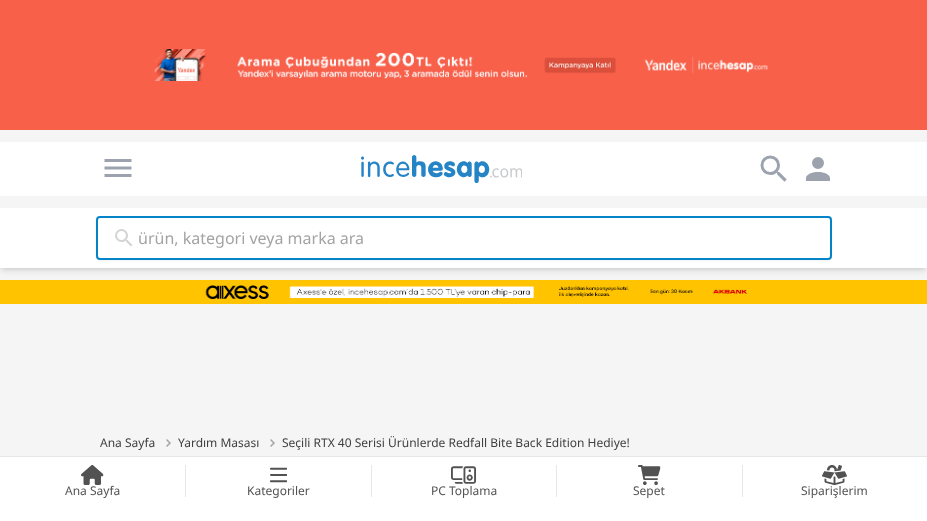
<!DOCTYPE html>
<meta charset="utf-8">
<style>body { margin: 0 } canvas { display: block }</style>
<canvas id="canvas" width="927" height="521"></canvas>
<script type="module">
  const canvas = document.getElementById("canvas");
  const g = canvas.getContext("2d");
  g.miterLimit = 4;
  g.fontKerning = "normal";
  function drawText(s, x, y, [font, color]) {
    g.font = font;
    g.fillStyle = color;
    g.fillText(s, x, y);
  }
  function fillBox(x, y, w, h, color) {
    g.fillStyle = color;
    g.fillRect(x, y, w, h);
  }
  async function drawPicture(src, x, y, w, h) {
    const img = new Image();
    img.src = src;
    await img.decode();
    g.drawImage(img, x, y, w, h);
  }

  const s1 = ["16px Noto Sans", "#A3A3A3"];
  const s2 = ["12px Noto Sans", "#525252"];
  const s3 = ["12px Noto Sans", "#404040"];

  fillBox(0, 0, 927, 521, "#F5F5F5");
  fillBox(0, 0, 927, 130, "#F86049");
  await drawPicture("pic1.png", 154, 49, 614, 32);
  fillBox(0, 142, 927, 54, "#FFFFFF");
  await drawPicture("pic2.png", 104, 159, 28, 18);
  await drawPicture("pic3.png", 361, 155, 161, 28);
  await drawPicture("pic4.png", 760, 155, 27, 27);
  await drawPicture("pic5.png", 806, 157, 24, 24);
  g.fillStyle = "rgba(0, 0, 0, 0.1)";
  g.filter = "blur(2px)";
  g.beginPath();
  g.rect(2, 212, 923, 56);
  g.fill();
  g.filter = "none";
  g.filter = "blur(3px)";
  g.beginPath();
  g.rect(1, 213, 925, 58);
  g.fill();
  g.filter = "none";
  fillBox(0, 208, 927, 60, "#FFFFFF");
  g.fillStyle = "rgba(0, 0, 0, 0.05)";
  g.filter = "blur(1px)";
  g.beginPath();
  g.roundRect(96, 217, 736, 44, 6);
  g.fill();
  g.filter = "none";
  g.fillStyle = "#FFFFFF";
  g.beginPath();
  g.roundRect(97, 217, 734, 42, 3);
  g.fill();
  g.strokeStyle = "#0284C7";
  g.lineWidth = 2;
  g.stroke();
  await drawPicture("pic6.png", 115, 229, 18, 18);
  drawText("ürün, kategori veya marka ara", 138, 244, s1);
  fillBox(0, 457, 927, 64, "#FFFFFF");
  fillBox(0, 456, 927, 1, "#E5E7EB");
  await drawPicture("pic7.png", 81, 465, 23, 20);
  drawText("Ana Sayfa", 65, 495, s2);
  fillBox(185, 465, 1, 32, "#E5E7EB");
  await drawPicture("pic8.png", 270, 467, 17, 16);
  drawText("Kategoriler", 247, 495, s2);
  fillBox(371, 465, 1, 32, "#E5E7EB");
  await drawPicture("pic9.png", 451, 466, 25, 18);
  drawText("PC Toplama", 431, 495, s2);
  fillBox(556, 465, 1, 32, "#E5E7EB");
  await drawPicture("pic10.png", 638, 465, 23, 20);
  drawText("Sepet", 633, 495, s2);
  fillBox(742, 465, 1, 32, "#E5E7EB");
  await drawPicture("pic11.png", 822, 465, 25, 20);
  drawText("Siparişlerim", 801, 495, s2);
  fillBox(0, 280, 927, 24, "#FFC300");
  await drawPicture("pic12.png", 205, 285, 542, 14);
  drawText("Ana Sayfa", 100, 447, s3);
  g.beginPath();
  g.moveTo(167, 440);
  g.lineTo(170, 443);
  g.lineTo(167, 446);
  g.strokeStyle = "#A3A3A3";
  g.lineWidth = 1.5;
  g.lineCap = "round";
  g.stroke();
  drawText("Yardım Masası", 178, 447, s3);
  g.beginPath();
  g.moveTo(271, 440);
  g.lineTo(274, 443);
  g.lineTo(271, 446);
  g.stroke();
  drawText("Seçili RTX 40 Serisi Ürünlerde Redfall Bite Back Edition Hediye!", 282, 447, s3);
</script>
